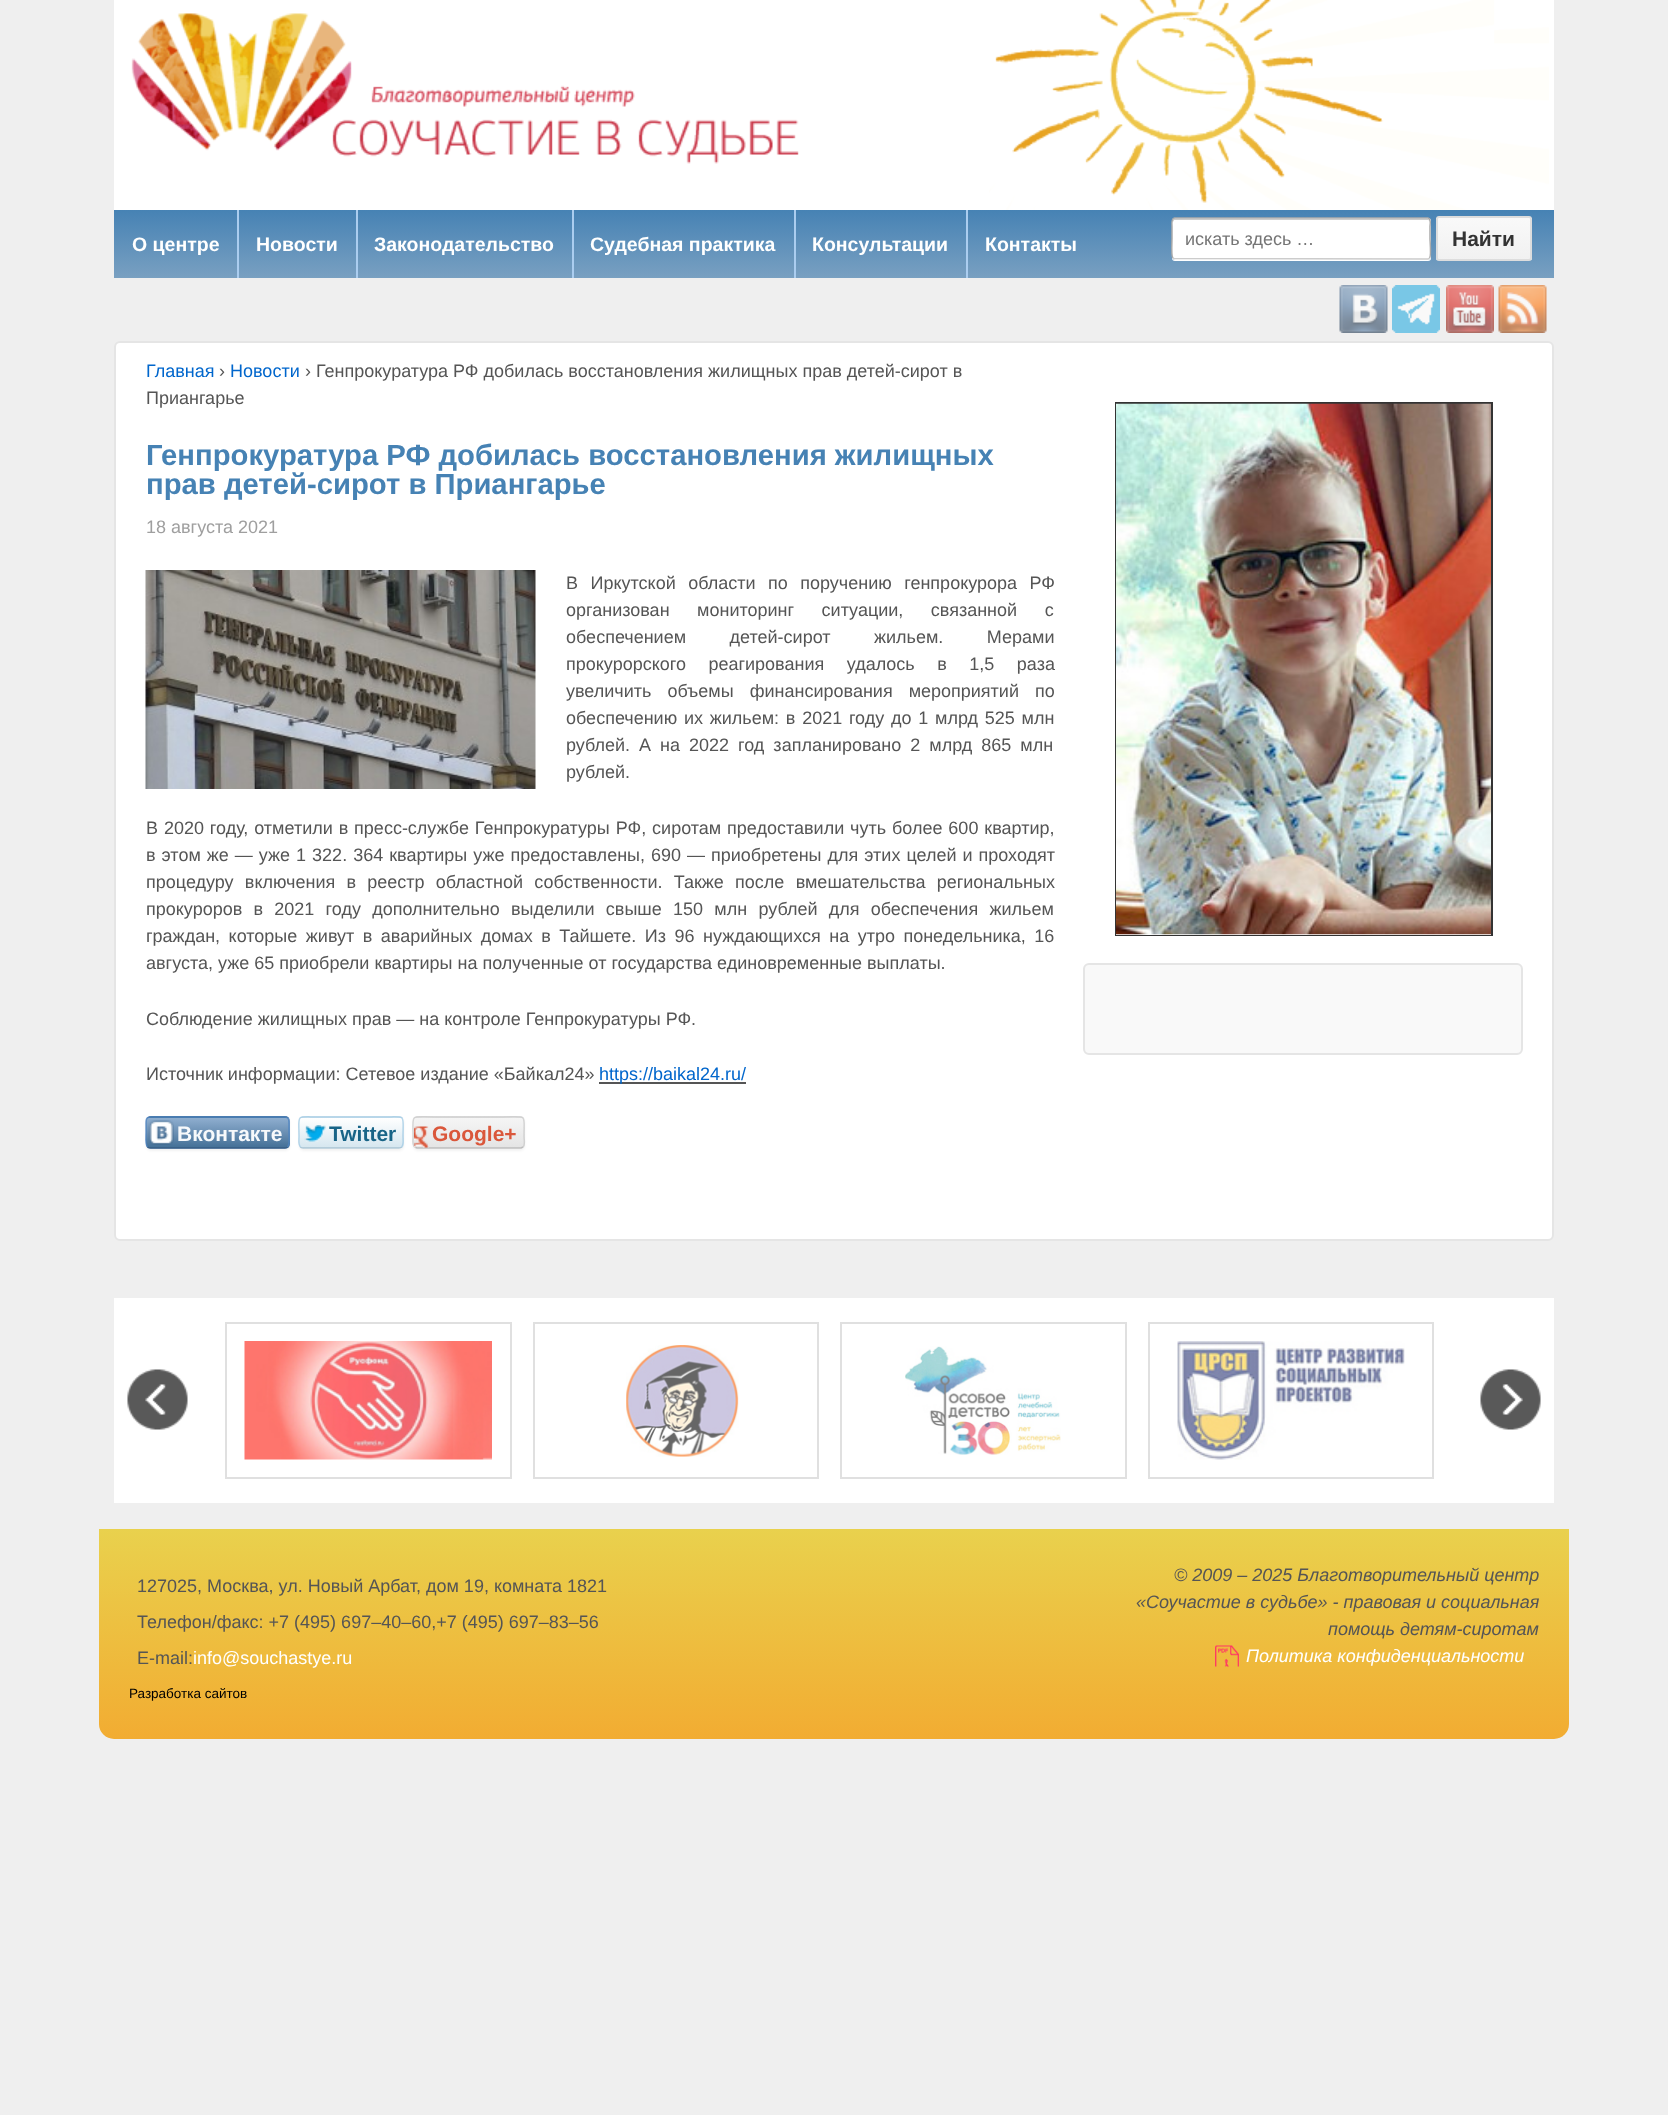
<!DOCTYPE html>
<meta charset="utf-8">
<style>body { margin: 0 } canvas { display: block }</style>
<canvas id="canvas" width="1668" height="2115"></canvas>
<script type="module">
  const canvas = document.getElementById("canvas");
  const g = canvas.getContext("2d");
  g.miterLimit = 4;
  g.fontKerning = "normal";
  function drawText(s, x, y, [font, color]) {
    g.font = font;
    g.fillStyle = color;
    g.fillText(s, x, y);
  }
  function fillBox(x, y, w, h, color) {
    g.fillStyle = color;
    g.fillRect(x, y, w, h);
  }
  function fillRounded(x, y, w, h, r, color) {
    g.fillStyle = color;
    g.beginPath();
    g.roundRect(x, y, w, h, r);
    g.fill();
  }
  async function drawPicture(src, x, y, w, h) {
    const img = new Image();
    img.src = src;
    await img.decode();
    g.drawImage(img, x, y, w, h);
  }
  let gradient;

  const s1 = ["bold 19.5px Liberation Sans", "#FFFFFF"];
  const s2 = ["18px Liberation Sans", "#757575"];
  const s3 = ["bold 21px Liberation Sans", "#333333"];
  const s4 = ["18px Liberation Sans", "#0066CC"];
  const s5 = ["18px Liberation Sans", "#555555"];
  const s6 = ["bold 29.25px Liberation Sans", "#4682B4"];
  const s7 = ["18px Liberation Sans", "#9F9F9F"];
  const s8 = ["bold 21px Liberation Sans", "#F7F9FB"];
  const s9 = ["bold 21px Liberation Sans", "#186487"];
  const s10 = ["bold 21px Liberation Sans", "#DA573B"];
  const s11 = ["18px Liberation Sans", "#FFFFFF"];
  const s12 = ["13.5px Liberation Sans", "#000000"];
  const s13 = ["italic 18px Liberation Sans", "#555555"];
  const s14 = ["italic 18px Liberation Sans", "#FFFFFF"];

  fillBox(0, 0, 1668, 2115, "#EFEFEF");
  fillBox(114, 0, 1440, 210, "#FFFFFF");
  await drawPicture("pic1.png", 131, 13, 668, 151);
  await drawPicture("pic2.png", 989, 0, 560, 210);
  gradient = g.createLinearGradient(834, 210, 834, 278);
  gradient.addColorStop(0, "#4682B4");
  gradient.addColorStop(1, "#79A0C1");
  g.fillStyle = gradient;
  g.fillRect(114, 210, 1440, 68);
  drawText("О центре", 132, 251, s1);
  fillBox(237, 210, 2, 68, "#ABCDEF");
  drawText("Hовости", 256, 251, s1);
  fillBox(356, 210, 2, 68, "#ABCDEF");
  drawText("Законодательство", 374, 251, s1);
  fillBox(572, 210, 2, 68, "#ABCDEF");
  drawText("Судебная практика", 590, 251, s1);
  fillBox(794, 210, 2, 68, "#ABCDEF");
  drawText("Консультации", 812, 251, s1);
  fillBox(966, 210, 2, 68, "#ABCDEF");
  drawText("Контакты", 985, 251, s1);
  g.beginPath();
  g.moveTo(1172, 258);
  g.bezierCurveTo(1172, 260, 1173, 261, 1175, 261);
  g.lineTo(1428, 261);
  g.bezierCurveTo(1430, 261, 1431, 260, 1431, 258);
  g.lineTo(1431, 256);
  g.bezierCurveTo(1431, 258, 1430, 260, 1428, 260);
  g.lineTo(1174, 260);
  g.bezierCurveTo(1173, 260, 1173, 259, 1172, 258);
  g.closePath();
  g.fill();
  fillRounded(1172, 218, 259, 42, 3, "#FFFFFF");
  g.fillStyle = "#CCCCCC";
  g.beginPath();
  g.moveTo(1174, 220);
  g.lineTo(1428, 220);
  g.bezierCurveTo(1429, 220, 1430, 221, 1430, 222);
  g.lineTo(1430, 220);
  g.bezierCurveTo(1430, 220, 1429, 219, 1428, 219);
  g.lineTo(1174, 219);
  g.bezierCurveTo(1174, 219, 1173, 220, 1173, 220);
  g.lineTo(1173, 222);
  g.closePath();
  g.fill();
  g.beginPath();
  g.moveTo(1429.5, 258);
  g.lineTo(1428, 259);
  g.lineTo(1174, 258.5);
  g.lineTo(1173, 258);
  g.strokeStyle = "#CCCCCC";
  g.lineWidth = 1.5;
  g.stroke();
  g.beginPath();
  g.moveTo(1173, 258);
  g.bezierCurveTo(1171, 256.5, 1172, 241.5, 1172, 238.5);
  g.lineTo(1172, 226.5);
  g.bezierCurveTo(1172, 225.5, 1171, 218.5, 1174.5, 218);
  g.lineTo(1428, 218);
  g.bezierCurveTo(1431.5, 218.5, 1430, 225.5, 1430, 226.5);
  g.lineTo(1430, 238.5);
  g.bezierCurveTo(1430, 241.5, 1431.5, 256.5, 1429.5, 258);
  g.strokeStyle = "#AAAAAA";
  g.stroke();
  drawText("искать здесь …", 1185, 245, s2);
  g.save();
  g.beginPath();
  g.roundRect(1436, 216, 96, 45, 3);
  g.clip();
  gradient = g.createLinearGradient(1484, 218, 1484, 260);
  gradient.addColorStop(0, "#F9F9F9");
  gradient.addColorStop(1, "#F1F1F1");
  g.fillStyle = gradient;
  g.fillRect(1436, 218, 96, 42);
  g.restore();
  g.beginPath();
  g.roundRect(1437, 217, 94, 43, 2);
  g.strokeStyle = "#DDDDDD";
  g.lineWidth = 2;
  g.stroke();
  drawText("Найти", 1452, 246, s3);
  await drawPicture("pic3.png", 1339, 285, 49, 48);
  await drawPicture("pic4.png", 1392, 285, 48, 48);
  await drawPicture("pic5.png", 1446, 285, 48, 48);
  await drawPicture("pic6.png", 1498, 285, 49, 48);
  g.fillStyle = "#FFFFFF";
  g.beginPath();
  g.roundRect(115, 342, 1438, 898, 5);
  g.fill();
  g.strokeStyle = "#E5E5E5";
  g.stroke();
  drawText("Главная", 146, 377, s4);
  drawText("›", 219, 377, s5);
  drawText("Hовости", 230, 377, s4);
  drawText("› Генпрокуратура РФ добилась восстановления жилищных прав детей-сирот в", 305, 377, s5);
  drawText("Приангарье", 146, 404, s5);
  drawText("Генпрокуратура РФ добилась восстановления жилищных", 146, 465, s6);
  drawText("прав детей-сирот в Приангарье", 146, 494, s6);
  drawText("18 августа 2021", 146, 533, s7);
  await drawPicture("pic7.png", 145, 570, 391, 219);
  g.wordSpacing = "7.5px";
  drawText("В Иркутской области по поручению генпрокурора РФ", 566, 589, s5);
  g.wordSpacing = "22.5px";
  drawText("организован мониторинг ситуации, связанной с", 566, 616, s5);
  g.wordSpacing = "38.5px";
  drawText("обеспечением детей-сирот жильем. Мерами", 566, 643, s5);
  g.wordSpacing = "17.5px";
  drawText("прокурорского реагирования удалось в 1,5 раза", 566, 670, s5);
  g.wordSpacing = "11px";
  drawText("увеличить объемы финансирования мероприятий по", 566, 697, s5);
  g.wordSpacing = "1.75px";
  drawText("обеспечению их жильем: в 2021 году до 1 млрд 525 млн", 566, 724, s5);
  g.wordSpacing = "4px";
  drawText("рублей. А на 2022 год запланировано 2 млрд 865 млн", 566, 751, s5);
  g.wordSpacing = "0px";
  drawText("рублей.", 566, 778, s5);
  g.wordSpacing = "0.9px";
  drawText("В 2020 году, отметили в пресс-службе Генпрокуратуры РФ, сиротам предоставили чуть более 600 квартир,", 146, 834, s5);
  g.wordSpacing = "1px";
  drawText("в этом же — уже 1 322. 364 квартиры уже предоставлены, 690 — приобретены для этих целей и проходят", 146, 861, s5);
  g.wordSpacing = "6.25px";
  drawText("процедуру включения в реестр областной собственности. Также после вмешательства региональных", 146, 888, s5);
  drawText("прокуроров в 2021 году дополнительно выделили свыше 150 млн рублей для обеспечения жильем", 146, 915, s5);
  g.wordSpacing = "3.5px";
  drawText("граждан, которые живут в аварийных домах в Тайшете. Из 96 нуждающихся на утро понедельника, 16", 146, 942, s5);
  g.wordSpacing = "0px";
  drawText("августа, уже 65 приобрели квартиры на полученные от государства единовременные выплаты.", 146, 969, s5);
  drawText("Соблюдение жилищных прав — на контроле Генпрокуратуры РФ.", 146, 1025, s5);
  drawText("Источник информации: Сетевое издание «Байкал24»", 146, 1080, s5);
  fillBox(599, 1082, 147, 2, "#555555");
  drawText("https://baikal24.ru/", 599, 1080, s4);
  g.fillStyle = "rgba(0, 0, 0, 0.05)";
  g.filter = "blur(1px)";
  g.beginPath();
  g.roundRect(146, 1118, 144, 33, 5);
  g.fill();
  g.filter = "none";
  g.save();
  g.beginPath();
  g.roundRect(146, 1116, 144, 33, 5);
  g.clip();
  gradient = g.createLinearGradient(218, 1088, 218, 1118);
  gradient.addColorStop(0, "#8FAECF");
  gradient.addColorStop(1, "#436F96");
  g.fillStyle = gradient;
  g.fillRect(146, 1116, 144, 2);
  gradient = g.createLinearGradient(218, 1118, 218, 1148);
  gradient.addColorStop(0, "#8FAECF");
  gradient.addColorStop(1, "#436F96");
  g.fillStyle = gradient;
  g.fillRect(146, 1118, 144, 30);
  gradient = g.createLinearGradient(218, 1148, 218, 1178);
  gradient.addColorStop(0, "#8FAECF");
  gradient.addColorStop(1, "#436F96");
  g.fillStyle = gradient;
  g.fillRect(146, 1148, 144, 1);
  g.restore();
  g.beginPath();
  g.moveTo(287.5, 1147);
  g.bezierCurveTo(287, 1148, 286, 1148, 285, 1148);
  g.lineTo(150, 1148);
  g.bezierCurveTo(149, 1148, 148, 1148, 147.5, 1147);
  g.strokeStyle = "rgba(52, 88, 127, 0.8)";
  g.lineWidth = 1.5;
  g.stroke();
  g.beginPath();
  g.moveTo(147.5, 1147);
  g.bezierCurveTo(145, 1145, 146, 1135.5, 146, 1132.5);
  g.lineTo(146, 1124.5);
  g.bezierCurveTo(146, 1121.5, 145.5, 1117, 150, 1117);
  g.lineTo(285, 1117);
  g.bezierCurveTo(289.5, 1117, 289, 1121.5, 289, 1124.5);
  g.lineTo(289, 1132.5);
  g.bezierCurveTo(289, 1135.5, 290, 1145, 287.5, 1147);
  g.strokeStyle = "rgba(78, 131, 193, 0.8)";
  g.stroke();
  await drawPicture("pic8.png", 148, 1120, 26, 25);
  drawText("Вконтакте", 177, 1141, s8);
  g.fillStyle = "rgba(0, 0, 0, 0.05)";
  g.filter = "blur(1px)";
  g.beginPath();
  g.roundRect(299, 1118, 105, 33, 5);
  g.fill();
  g.filter = "none";
  g.save();
  g.beginPath();
  g.roundRect(299, 1116, 105, 33, 5);
  g.clip();
  gradient = g.createLinearGradient(351, 1088, 351, 1118);
  gradient.addColorStop(0, "#FFFFFF");
  gradient.addColorStop(1, "#D5E6EF");
  g.fillStyle = gradient;
  g.fillRect(299, 1116, 105, 2);
  gradient = g.createLinearGradient(351, 1118, 351, 1148);
  gradient.addColorStop(0, "#FFFFFF");
  gradient.addColorStop(1, "#D5E6EF");
  g.fillStyle = gradient;
  g.fillRect(299, 1118, 105, 30);
  gradient = g.createLinearGradient(351, 1148, 351, 1178);
  gradient.addColorStop(0, "#FFFFFF");
  gradient.addColorStop(1, "#D5E6EF");
  g.fillStyle = gradient;
  g.fillRect(299, 1148, 105, 1);
  g.restore();
  g.beginPath();
  g.moveTo(401.5, 1147);
  g.bezierCurveTo(401, 1148, 400, 1148, 399, 1148);
  g.lineTo(303, 1148);
  g.bezierCurveTo(302, 1148, 301, 1148, 300.5, 1147);
  g.strokeStyle = "rgba(158, 186, 204, 0.8)";
  g.stroke();
  g.beginPath();
  g.moveTo(300.5, 1147);
  g.bezierCurveTo(298, 1144.5, 299, 1139.5, 299, 1136.5);
  g.bezierCurveTo(299, 1113.5, 295, 1117, 319, 1117);
  g.lineTo(383, 1117);
  g.bezierCurveTo(407, 1117, 403, 1113.5, 403, 1136.5);
  g.bezierCurveTo(403, 1139.5, 404, 1144.5, 401.5, 1147);
  g.strokeStyle = "rgba(164, 204, 229, 0.8)";
  g.stroke();
  await drawPicture("pic9.png", 304, 1125, 22, 17);
  drawText("Twitter", 329, 1141, s9);
  g.fillStyle = "rgba(0, 0, 0, 0.05)";
  g.filter = "blur(1px)";
  g.beginPath();
  g.roundRect(413, 1118, 112, 33, 5);
  g.fill();
  g.filter = "none";
  g.save();
  g.beginPath();
  g.roundRect(413, 1116, 112, 33, 5);
  g.clip();
  gradient = g.createLinearGradient(469, 1088, 469, 1118);
  gradient.addColorStop(0, "#F5F5F5");
  gradient.addColorStop(1, "#E4E4E4");
  g.fillStyle = gradient;
  g.fillRect(413, 1116, 112, 2);
  gradient = g.createLinearGradient(469, 1118, 469, 1148);
  gradient.addColorStop(0, "#F5F5F5");
  gradient.addColorStop(1, "#E4E4E4");
  g.fillStyle = gradient;
  g.fillRect(413, 1118, 112, 30);
  gradient = g.createLinearGradient(469, 1148, 469, 1178);
  gradient.addColorStop(0, "#F5F5F5");
  gradient.addColorStop(1, "#E4E4E4");
  g.fillStyle = gradient;
  g.fillRect(413, 1148, 112, 1);
  g.restore();
  g.beginPath();
  g.moveTo(523, 1147);
  g.lineTo(521, 1148);
  g.lineTo(434, 1148);
  g.lineTo(417, 1148);
  g.lineTo(414.5, 1147);
  g.strokeStyle = "rgba(179, 179, 179, 0.8)";
  g.stroke();
  g.beginPath();
  g.moveTo(414.5, 1147);
  g.bezierCurveTo(412, 1144.5, 413, 1139.5, 413, 1136.5);
  g.bezierCurveTo(413, 1113, 409.5, 1117, 434, 1117);
  g.lineTo(503, 1117);
  g.bezierCurveTo(528, 1117, 524, 1113, 524, 1136.5);
  g.bezierCurveTo(524, 1139.5, 525.5, 1144.5, 523, 1147);
  g.strokeStyle = "rgba(204, 204, 204, 0.8)";
  g.stroke();
  await drawPicture("pic10.png", 414, 1126, 15, 22);
  drawText("Google+", 432, 1141, s10);
  g.strokeStyle = "#333333";
  g.lineWidth = 2;
  g.strokeRect(1116, 403, 376, 532);
  fillBox(1116, 934, 375, 1, "#FFFFFF");
  await drawPicture("pic11.png", 1116, 403, 375, 532);
  g.fillStyle = "#F9F9F9";
  g.beginPath();
  g.roundRect(1084, 964, 438, 90, 5);
  g.fill();
  g.strokeStyle = "#E5E5E5";
  g.stroke();
  fillBox(114, 1298, 1440, 205, "#FFFFFF");
  await drawPicture("pic12.png", 127, 1369, 61, 61);
  g.strokeStyle = "#E0E0E0";
  g.strokeRect(226, 1323, 285, 155);
  await drawPicture("pic13.png", 244, 1341, 248, 119);
  g.strokeRect(534, 1323, 284, 155);
  await drawPicture("pic14.png", 626, 1345, 113, 112);
  g.strokeRect(841, 1323, 285, 155);
  await drawPicture("pic15.png", 905, 1346, 156, 109);
  g.strokeRect(1149, 1323, 284, 155);
  await drawPicture("pic16.png", 1177, 1341, 228, 119);
  await drawPicture("pic17.png", 1480, 1369, 61, 61);
  gradient = g.createLinearGradient(834, 1529, 834, 1739);
  gradient.addColorStop(0, "#E9D14D");
  gradient.addColorStop(1, "#F2AC32");
  g.fillStyle = gradient;
  g.beginPath();
  g.roundRect(99, 1529, 1470, 210, [0, 0, 15, 15]);
  g.fill();
  drawText("127025, Москва, ул. Новый Арбат, дом 19, комната 1821", 137, 1592, s5);
  drawText("Телефон/факс: +7 (495) 697–40–60,+7 (495) 697–83–56", 137, 1628, s5);
  drawText("E-mail:", 137, 1664, s5);
  drawText("info@souchastye.ru", 193, 1664, s11);
  drawText("Разработка сайтов", 129, 1698, s12);
  drawText("© 2009 – 2025 Благотворительный центр", 1174, 1581, s13);
  drawText("«Соучастие в судьбе» - правовая и социальная", 1136, 1608, s13);
  drawText("помощь детям-сиротам", 1328, 1635, s13);
  await drawPicture("pic18.png", 1215, 1645, 24, 22);
  drawText("Политика конфиденциальности", 1246, 1662, s14);
</script>
